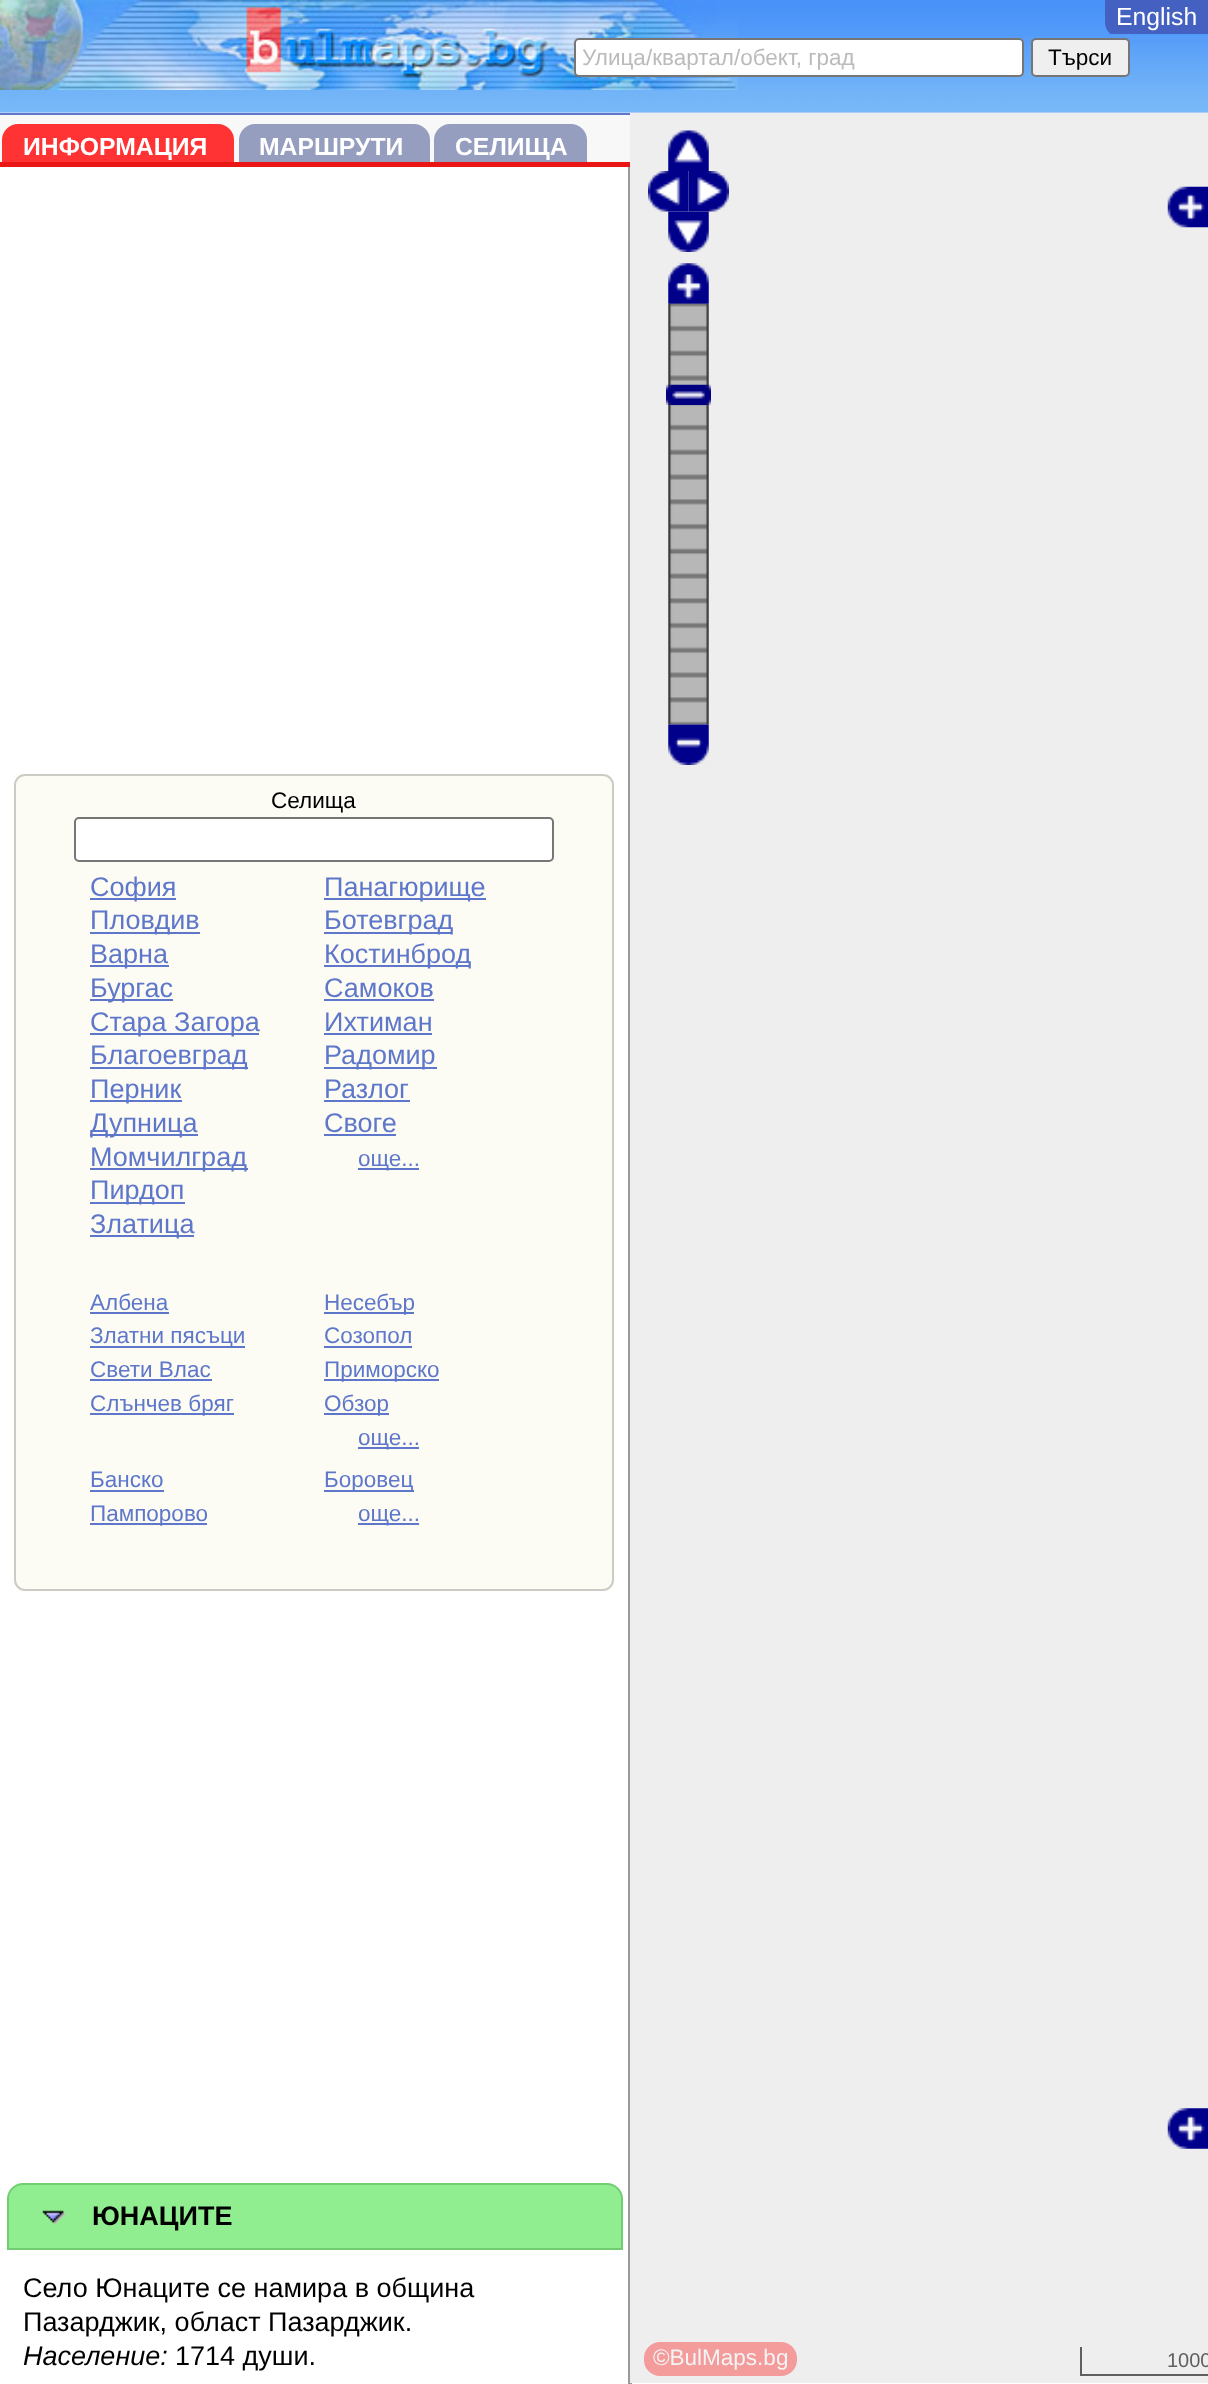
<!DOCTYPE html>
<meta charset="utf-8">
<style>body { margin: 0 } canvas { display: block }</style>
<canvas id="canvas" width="1208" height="2384"></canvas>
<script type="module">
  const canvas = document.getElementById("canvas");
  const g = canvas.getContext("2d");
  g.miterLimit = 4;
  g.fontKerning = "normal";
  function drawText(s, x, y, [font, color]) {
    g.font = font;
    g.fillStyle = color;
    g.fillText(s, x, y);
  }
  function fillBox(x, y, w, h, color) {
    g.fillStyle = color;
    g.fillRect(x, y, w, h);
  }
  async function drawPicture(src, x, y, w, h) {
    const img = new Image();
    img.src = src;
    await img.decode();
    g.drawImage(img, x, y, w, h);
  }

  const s1 = ["24.75px Liberation Sans", "#FFFFFF"];
  const s2 = ["22.5px Liberation Sans", "#BBBBBB"];
  const s3 = ["22.5px Liberation Sans", "#000000"];
  const s4 = ["bold 24.75px Liberation Sans", "#FFFFFF"];
  const s5 = ["27px Liberation Sans", "#5E77CA"];
  const s6 = ["22.5px Liberation Sans", "#5E77CA"];
  const s7 = ["bold 27px Liberation Sans", "#000000"];
  const s8 = ["27px Liberation Sans", "#000000"];
  const s9 = ["italic 27px Liberation Sans", "#000000"];
  const s10 = ["22.5px Liberation Sans", "#F4F4F4"];
  const s11 = ["20px Liberation Sans", "#5F5F5F"];

  fillBox(0, 0, 1208, 2384, "#FFFFFF");
  fillBox(0, 112, 1208, 1, "#DFE4F7");
  await drawPicture("pic1.png", 0, 0, 1208, 113);
  g.save();
  g.beginPath();
  g.rect(803, 0, 405, 34);
  g.clip();
  g.fillStyle = "#4461C1";
  g.beginPath();
  g.roundRect(1105, 0, 103, 38, [0, 0, 0, 16]);
  g.fill();
  g.restore();
  drawText("English", 1116, 25, s1);
  fillBox(0, 113, 630, 2, "#5E77CA");
  await drawPicture("pic2.png", 0, 0, 738, 90);
  g.fillStyle = "#FFFFFF";
  g.beginPath();
  g.roundRect(575, 39, 448, 37, 4);
  g.fill();
  g.strokeStyle = "#767676";
  g.lineWidth = 2;
  g.stroke();
  g.save();
  g.beginPath();
  g.rect(583, 45, 432, 25);
  g.clip();
  drawText("Улица/квартал/обект, град", 582, 65, s2);
  g.restore();
  g.fillStyle = "#EFEFEF";
  g.beginPath();
  g.roundRect(1032, 39, 97, 37, 4);
  g.fill();
  g.stroke();
  drawText("Търси", 1048, 65, s3);
  fillBox(630, 2383, 2, 1, "#999999");
  fillBox(0, 115, 630, 47, "#F8F8F8");
  fillBox(0, 162, 630, 5, "#EA1515");
  g.fillStyle = "#FF3333";
  g.beginPath();
  g.roundRect(2, 124, 232, 38, [16, 16, 0, 0]);
  g.fill();
  drawText("ИНФОРМАЦИЯ", 23, 155, s4);
  g.fillStyle = "#959EBF";
  g.beginPath();
  g.roundRect(239, 124, 191, 38, [16, 16, 0, 0]);
  g.fill();
  drawText("МАРШРУТИ", 259, 155, s4);
  g.fillStyle = "#959EBF";
  g.beginPath();
  g.roundRect(434, 124, 153, 38, [16, 16, 0, 0]);
  g.fill();
  drawText("СЕЛИЩА", 455, 155, s4);
  fillBox(628, 167, 2, 2217, "#999999");
  g.fillStyle = "#FCFCF4";
  g.beginPath();
  g.roundRect(15, 775, 598, 815, 10);
  g.fill();
  g.strokeStyle = "#CCCCC4";
  g.stroke();
  drawText("Селища", 271, 808, s3);
  g.fillStyle = "#FFFFFF";
  g.beginPath();
  g.roundRect(75, 818, 478, 43, 4);
  g.fill();
  g.strokeStyle = "#767676";
  g.stroke();
  fillBox(90, 898, 86, 2, "#5E77CA");
  drawText("София", 90, 896, s5);
  fillBox(90, 932, 110, 2, "#5E77CA");
  drawText("Пловдив", 90, 929, s5);
  fillBox(90, 965, 79, 2, "#5E77CA");
  drawText("Варна", 90, 963, s5);
  fillBox(90, 999, 83, 2, "#5E77CA");
  drawText("Бургас", 90, 997, s5);
  fillBox(90, 1033, 169, 2, "#5E77CA");
  drawText("Стара Загора", 90, 1031, s5);
  fillBox(90, 1067, 158, 2, "#5E77CA");
  drawText("Благоевград", 90, 1064, s5);
  fillBox(90, 1100, 92, 2, "#5E77CA");
  drawText("Перник", 90, 1098, s5);
  fillBox(90, 1134, 108, 2, "#5E77CA");
  drawText("Дупница", 90, 1132, s5);
  fillBox(90, 1168, 158, 2, "#5E77CA");
  drawText("Момчилград", 90, 1166, s5);
  fillBox(90, 1202, 95, 2, "#5E77CA");
  drawText("Пирдоп", 90, 1199, s5);
  fillBox(90, 1235, 104, 2, "#5E77CA");
  drawText("Златица", 90, 1233, s5);
  fillBox(324, 898, 162, 2, "#5E77CA");
  drawText("Панагюрище", 324, 896, s5);
  fillBox(324, 932, 128, 2, "#5E77CA");
  drawText("Ботевград", 324, 929, s5);
  fillBox(324, 965, 146, 2, "#5E77CA");
  drawText("Костинброд", 324, 963, s5);
  drawText("Самоков", 324, 997, s5);
  fillBox(324, 999, 110, 2, "#5E77CA");
  drawText("Ихтиман", 324, 1031, s5);
  fillBox(324, 1033, 108, 2, "#5E77CA");
  fillBox(324, 1067, 113, 2, "#5E77CA");
  drawText("Радомир", 324, 1064, s5);
  drawText("Разлог", 324, 1098, s5);
  fillBox(324, 1100, 86, 2, "#5E77CA");
  drawText("Своге", 324, 1132, s5);
  fillBox(324, 1134, 72, 2, "#5E77CA");
  fillBox(358, 1168, 61, 2, "#5E77CA");
  drawText("още...", 358, 1166, s6);
  drawText("Албена", 90, 1310, s6);
  fillBox(90, 1312, 79, 2, "#5E77CA");
  fillBox(90, 1346, 155, 2, "#5E77CA");
  drawText("Златни пясъци", 90, 1343, s6);
  drawText("Свети Влас", 90, 1377, s6);
  fillBox(90, 1379, 122, 2, "#5E77CA");
  fillBox(90, 1413, 144, 2, "#5E77CA");
  drawText("Слънчев бряг", 90, 1411, s6);
  fillBox(324, 1312, 90, 2, "#5E77CA");
  drawText("Несебър", 324, 1310, s6);
  drawText("Созопол", 324, 1343, s6);
  fillBox(324, 1346, 88, 2, "#5E77CA");
  fillBox(324, 1379, 115, 2, "#5E77CA");
  drawText("Приморско", 324, 1377, s6);
  fillBox(324, 1413, 65, 2, "#5E77CA");
  drawText("Обзор", 324, 1411, s6);
  fillBox(358, 1447, 61, 2, "#5E77CA");
  drawText("още...", 358, 1445, s6);
  drawText("Банско", 90, 1487, s6);
  fillBox(90, 1490, 74, 2, "#5E77CA");
  fillBox(90, 1523, 117, 2, "#5E77CA");
  drawText("Пампорово", 90, 1521, s6);
  fillBox(324, 1490, 90, 2, "#5E77CA");
  drawText("Боровец", 324, 1487, s6);
  fillBox(358, 1523, 61, 2, "#5E77CA");
  drawText("още...", 358, 1521, s6);
  g.fillStyle = "#90EE90";
  g.beginPath();
  g.roundRect(8, 2184, 614, 65, [15, 15, 0, 0]);
  g.fill();
  g.strokeStyle = "#72CD72";
  g.stroke();
  await drawPicture("pic3.png", 42, 2210, 24, 15);
  drawText("ЮНАЦИТЕ", 92, 2225, s7);
  drawText("Село Юнаците се намира в община", 23, 2297, s8);
  drawText("Пазарджик, област Пазарджик.", 23, 2331, s8);
  drawText("Население:", 23, 2365, s9);
  drawText("1714 души.", 175, 2365, s8);
  fillBox(630, 113, 578, 2270, "#EEEEEE");
  await drawPicture("pic4.png", 668, 130, 41, 41);
  await drawPicture("pic5.png", 648, 171, 41, 41);
  await drawPicture("pic6.png", 688, 171, 41, 41);
  await drawPicture("pic7.png", 668, 211, 41, 41);
  await drawPicture("pic8.png", 668, 263, 41, 41);
  await drawPicture("pic9.png", 668, 303, 41, 422);
  await drawPicture("pic10.png", 666, 384, 45, 21);
  await drawPicture("pic11.png", 668, 724, 41, 41);
  await drawPicture("pic12.png", 1167, 186, 41, 42);
  await drawPicture("pic13.png", 1167, 2108, 41, 41);
  g.fillStyle = "#F49B9B";
  g.beginPath();
  g.roundRect(645, 2343, 151, 32, 15);
  g.fill();
  g.strokeStyle = "#F49B9B";
  g.stroke();
  drawText("©BulMaps.bg", 653, 2365, s10);
  fillBox(1080, 2374, 128, 2, "#5F5F5F");
  fillBox(1080, 2347, 2, 29, "#5F5F5F");
  drawText("1000", 1167, 2367, s11);
</script>
